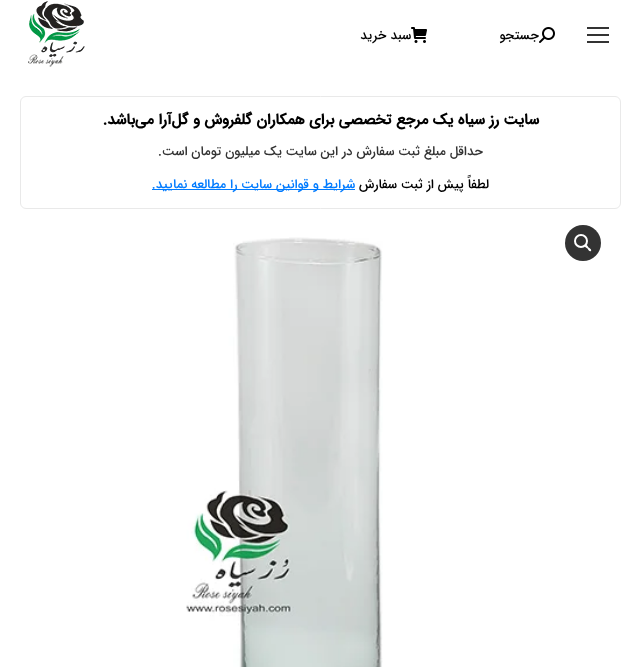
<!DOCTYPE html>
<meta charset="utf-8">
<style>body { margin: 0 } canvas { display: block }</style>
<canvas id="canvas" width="641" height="667"></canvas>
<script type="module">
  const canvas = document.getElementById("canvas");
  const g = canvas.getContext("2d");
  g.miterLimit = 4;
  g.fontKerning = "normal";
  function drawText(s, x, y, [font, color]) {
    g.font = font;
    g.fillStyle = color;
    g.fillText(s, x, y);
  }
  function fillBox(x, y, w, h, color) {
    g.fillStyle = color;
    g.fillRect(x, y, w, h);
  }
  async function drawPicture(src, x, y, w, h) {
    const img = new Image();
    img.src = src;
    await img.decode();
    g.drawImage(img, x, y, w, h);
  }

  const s1 = ["500 13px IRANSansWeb", "#000000"];
  const s2 = ["bold 15px IRANSansWeb", "#000000"];
  const s3 = ["500 13px IRANSansWeb", "#333333"];
  const s4 = ["500 13px IRANSansWeb", "#007BFF"];

  fillBox(0, 0, 641, 667, "#FFFFFF");
  fillBox(587, 27, 22, 2, "#333333");
  fillBox(587, 34, 22, 2, "#333333");
  fillBox(587, 41, 22, 2, "#333333");
  await drawPicture("pic1.png", 539, 27, 16, 16);
  g.direction = "rtl";
  drawText("جستجو", 539, 39, s1);
  await drawPicture("pic2.png", 411, 27, 16, 16);
  drawText("سبد خرید", 411, 39, s1);
  await drawPicture("pic3.png", 28, 1, 57, 66);
  g.beginPath();
  g.roundRect(20.5, 96.5, 600, 112, 5.5);
  g.strokeStyle = "#E9E9E9";
  g.stroke();
  drawText("سایت رز سیاه یک مرجع تخصصی برای همکاران گلفروش و گل‌آرا می‌باشد.", 539, 124, s2);
  drawText("حداقل مبلغ ثبت سفارش در این سایت یک میلیون تومان است.", 483, 155, s3);
  drawText("لطفاً پیش از ثبت سفارش", 489, 188, s1);
  fillBox(152, 189, 203, 1, "#007BFF");
  drawText("شرایط و قوانین سایت را مطالعه نمایید.", 355, 188, s4);
  g.fillStyle = "#333333";
  g.beginPath();
  g.arc(583, 243, 18, 0, Math.PI * 2);
  g.fill();
  g.beginPath();
  g.arc(581, 241, 6, 0, Math.PI * 2);
  g.strokeStyle = "#FFFFFF";
  g.lineWidth = 2;
  g.stroke();
  g.fillStyle = "#FFFFFF";
  g.beginPath();
  g.moveTo(585, 245);
  g.bezierCurveTo(586.5, 244, 588, 246.5, 588.5, 247.5);
  g.bezierCurveTo(589.5, 248, 592, 249.5, 591, 251);
  g.bezierCurveTo(589.5, 252, 588, 249.5, 587.5, 248.5);
  g.bezierCurveTo(586.5, 248, 584, 246.5, 585, 245);
  g.closePath();
  g.fill();
  await drawPicture("pic4.png", 186, 237, 197, 430);
</script>
